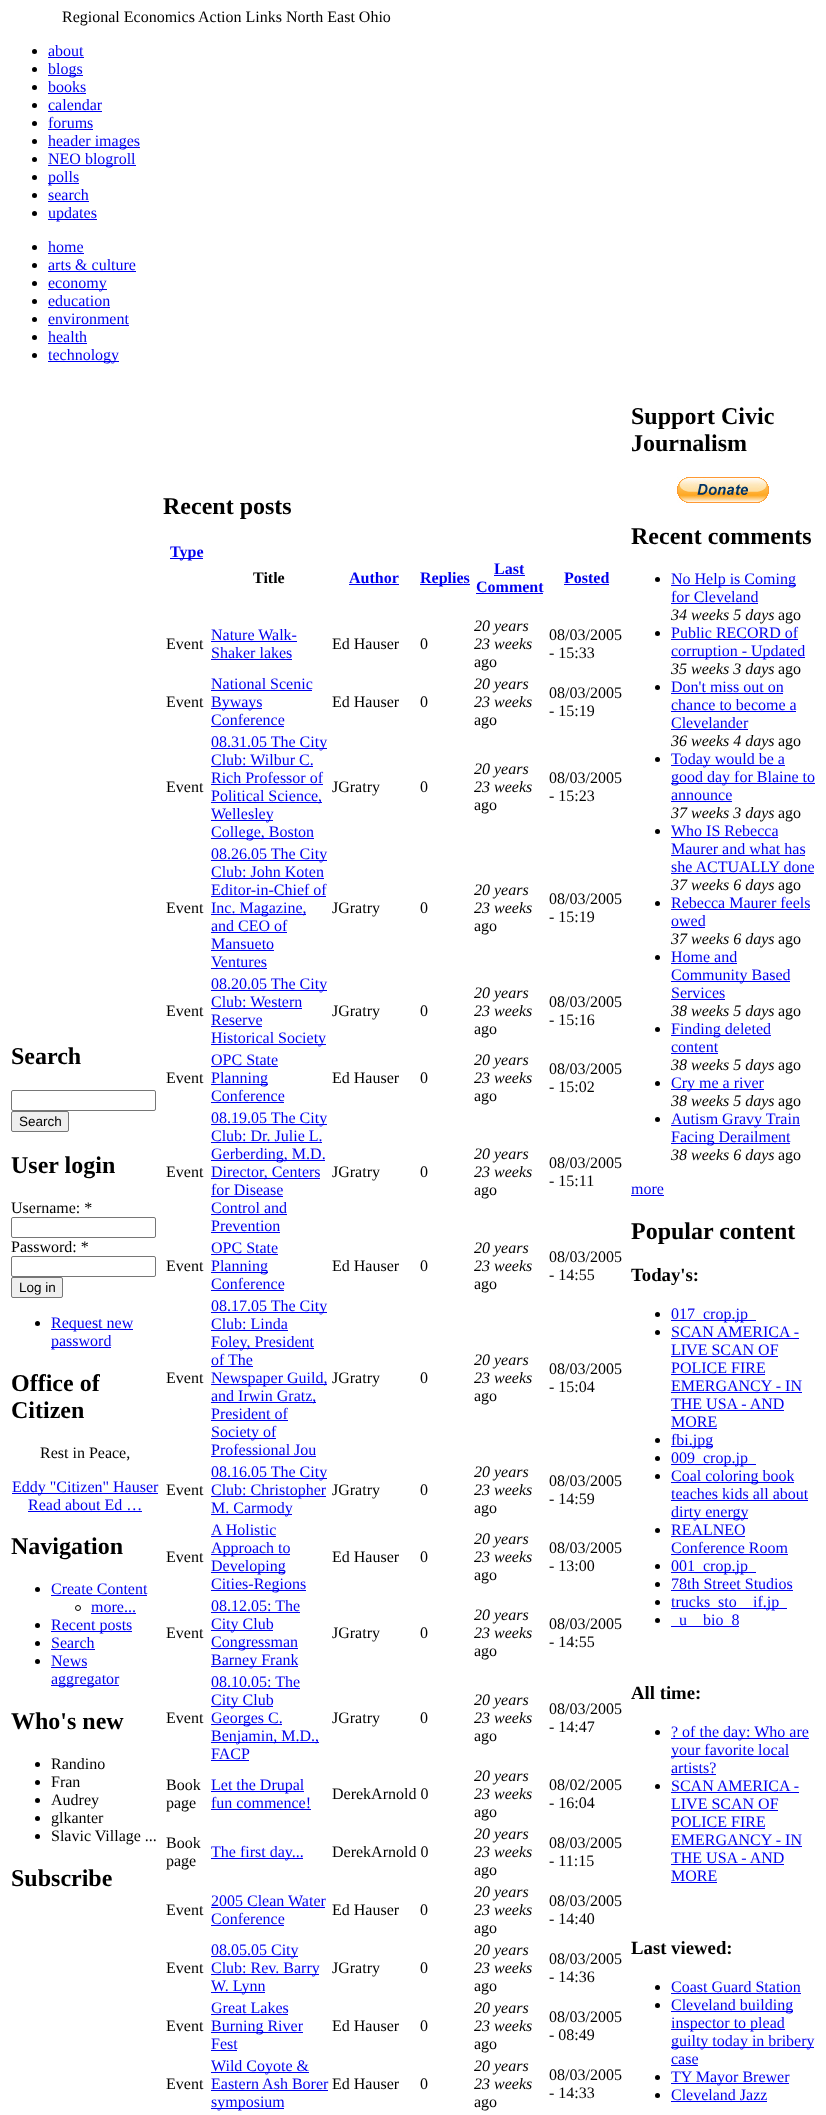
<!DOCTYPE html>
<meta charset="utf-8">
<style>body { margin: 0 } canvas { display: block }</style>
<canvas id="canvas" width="826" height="2115"></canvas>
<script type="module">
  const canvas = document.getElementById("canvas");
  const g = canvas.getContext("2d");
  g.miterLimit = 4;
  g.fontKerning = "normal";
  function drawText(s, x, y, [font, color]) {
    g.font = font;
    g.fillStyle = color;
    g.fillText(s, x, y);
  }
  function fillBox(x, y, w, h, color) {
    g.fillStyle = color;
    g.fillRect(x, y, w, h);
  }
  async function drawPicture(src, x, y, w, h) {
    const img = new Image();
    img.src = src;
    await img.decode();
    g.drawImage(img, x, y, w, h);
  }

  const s1 = ["16px Liberation Serif", "#000000"];
  const s2 = ["16px Liberation Serif", "#0000EE"];
  const s3 = ["bold 24px Liberation Serif", "#000000"];
  const s4 = ["13.5px Liberation Sans", "#000000"];
  const s5 = ["bold 16px Liberation Serif", "#0000EE"];
  const s6 = ["bold 16px Liberation Serif", "#000000"];
  const s7 = ["italic 16px Liberation Serif", "#000000"];
  const s8 = ["bold 18.75px Liberation Serif", "#000000"];

  fillBox(0, 0, 826, 2115, "#FFFFFF");
  drawText("Regional Economics Action Links North East Ohio", 62, 22, s1);
  g.beginPath();
  g.arc(34.5, 51.5, 2.5, 0, Math.PI * 2);
  g.fill();
  drawText("about", 48, 56, s2);
  fillBox(48, 57, 36, 1, "#0000EE");
  g.fillStyle = "#000000";
  g.beginPath();
  g.arc(34.5, 69.5, 2.5, 0, Math.PI * 2);
  g.fill();
  fillBox(48, 75, 35, 1, "#0000EE");
  drawText("blogs", 48, 74, s2);
  g.fillStyle = "#000000";
  g.beginPath();
  g.arc(34.5, 87.5, 2.5, 0, Math.PI * 2);
  g.fill();
  drawText("books", 48, 92, s2);
  fillBox(48, 93, 38, 1, "#0000EE");
  g.fillStyle = "#000000";
  g.beginPath();
  g.arc(34.5, 105.5, 2.5, 0, Math.PI * 2);
  g.fill();
  drawText("calendar", 48, 110, s2);
  fillBox(48, 111, 54, 1, "#0000EE");
  g.fillStyle = "#000000";
  g.beginPath();
  g.arc(34.5, 123.5, 2.5, 0, Math.PI * 2);
  g.fill();
  drawText("forums", 48, 128, s2);
  fillBox(48, 129, 45, 1, "#0000EE");
  g.fillStyle = "#000000";
  g.beginPath();
  g.arc(34.5, 141.5, 2.5, 0, Math.PI * 2);
  g.fill();
  fillBox(48, 147, 92, 1, "#0000EE");
  drawText("header images", 48, 146, s2);
  g.fillStyle = "#000000";
  g.beginPath();
  g.arc(34.5, 159.5, 2.5, 0, Math.PI * 2);
  g.fill();
  fillBox(48, 165, 88, 1, "#0000EE");
  drawText("NEO blogroll", 48, 164, s2);
  g.fillStyle = "#000000";
  g.beginPath();
  g.arc(34.5, 177.5, 2.5, 0, Math.PI * 2);
  g.fill();
  fillBox(48, 183, 31, 1, "#0000EE");
  drawText("polls", 48, 182, s2);
  g.fillStyle = "#000000";
  g.beginPath();
  g.arc(34.5, 195.5, 2.5, 0, Math.PI * 2);
  g.fill();
  drawText("search", 48, 200, s2);
  fillBox(48, 201, 41, 1, "#0000EE");
  g.fillStyle = "#000000";
  g.beginPath();
  g.arc(34.5, 213.5, 2.5, 0, Math.PI * 2);
  g.fill();
  fillBox(48, 219, 49, 1, "#0000EE");
  drawText("updates", 48, 218, s2);
  g.fillStyle = "#000000";
  g.beginPath();
  g.arc(34.5, 247.5, 2.5, 0, Math.PI * 2);
  g.fill();
  drawText("home", 48, 252, s2);
  fillBox(48, 253, 36, 1, "#0000EE");
  g.fillStyle = "#000000";
  g.beginPath();
  g.arc(34.5, 265.5, 2.5, 0, Math.PI * 2);
  g.fill();
  drawText("arts & culture", 48, 270, s2);
  fillBox(48, 271, 88, 1, "#0000EE");
  g.fillStyle = "#000000";
  g.beginPath();
  g.arc(34.5, 283.5, 2.5, 0, Math.PI * 2);
  g.fill();
  fillBox(48, 289, 59, 1, "#0000EE");
  drawText("economy", 48, 288, s2);
  g.fillStyle = "#000000";
  g.beginPath();
  g.arc(34.5, 301.5, 2.5, 0, Math.PI * 2);
  g.fill();
  drawText("education", 48, 306, s2);
  fillBox(48, 307, 62, 1, "#0000EE");
  g.fillStyle = "#000000";
  g.beginPath();
  g.arc(34.5, 319.5, 2.5, 0, Math.PI * 2);
  g.fill();
  drawText("environment", 48, 324, s2);
  fillBox(48, 325, 81, 1, "#0000EE");
  g.fillStyle = "#000000";
  g.beginPath();
  g.arc(34.5, 337.5, 2.5, 0, Math.PI * 2);
  g.fill();
  drawText("health", 48, 342, s2);
  fillBox(48, 343, 39, 1, "#0000EE");
  g.fillStyle = "#000000";
  g.beginPath();
  g.arc(34.5, 355.5, 2.5, 0, Math.PI * 2);
  g.fill();
  fillBox(48, 361, 71, 1, "#0000EE");
  drawText("technology", 48, 360, s2);
  drawText("Search", 11, 1064, s3);
  g.beginPath();
  g.roundRect(11.5, 1090.5, 144, 20, 1.5);
  g.strokeStyle = "#767676";
  g.stroke();
  g.fillStyle = "#EFEFEF";
  g.beginPath();
  g.roundRect(11.5, 1111.5, 57, 20, 1.5);
  g.fill();
  g.stroke();
  drawText("Search", 19, 1126, s4);
  drawText("User login", 11, 1173, s3);
  drawText("Username: *", 11, 1213, s1);
  g.beginPath();
  g.roundRect(11.5, 1217.5, 144, 20, 1.5);
  g.stroke();
  drawText("Password: *", 11, 1252, s1);
  g.beginPath();
  g.roundRect(11.5, 1256.5, 144, 20, 1.5);
  g.stroke();
  g.fillStyle = "#EFEFEF";
  g.beginPath();
  g.roundRect(11.5, 1277.5, 51, 20, 1.5);
  g.fill();
  g.stroke();
  drawText("Log in", 19, 1292, s4);
  g.beginPath();
  g.arc(37.5, 1323.5, 2.5, 0, Math.PI * 2);
  g.fill();
  fillBox(51, 1329, 82, 1, "#0000EE");
  drawText("Request new", 51, 1328, s2);
  fillBox(51, 1347, 60, 1, "#0000EE");
  drawText("password", 51, 1346, s2);
  drawText("Office of", 11, 1391, s3);
  drawText("Citizen", 11, 1418, s3);
  drawText("Rest in Peace,", 40, 1458, s1);
  fillBox(12, 1493, 146, 1, "#0000EE");
  drawText("Eddy \"Citizen\" Hauser", 12, 1492, s2);
  drawText("Read about Ed …", 28, 1510, s2);
  fillBox(28, 1511, 114, 1, "#0000EE");
  drawText("Navigation", 11, 1554, s3);
  g.beginPath();
  g.arc(37.5, 1589.5, 2.5, 0, Math.PI * 2);
  g.fill();
  drawText("Create Content", 51, 1594, s2);
  fillBox(51, 1595, 96, 1, "#0000EE");
  g.beginPath();
  g.arc(78, 1608, 2.5, 0, Math.PI * 2);
  g.strokeStyle = "#000000";
  g.stroke();
  drawText("more...", 91, 1612, s2);
  fillBox(91, 1613, 45, 1, "#0000EE");
  g.fillStyle = "#000000";
  g.beginPath();
  g.arc(37.5, 1625.5, 2.5, 0, Math.PI * 2);
  g.fill();
  fillBox(51, 1631, 81, 1, "#0000EE");
  drawText("Recent posts", 51, 1630, s2);
  g.fillStyle = "#000000";
  g.beginPath();
  g.arc(37.5, 1643.5, 2.5, 0, Math.PI * 2);
  g.fill();
  drawText("Search", 51, 1648, s2);
  fillBox(51, 1649, 44, 1, "#0000EE");
  g.fillStyle = "#000000";
  g.beginPath();
  g.arc(37.5, 1661.5, 2.5, 0, Math.PI * 2);
  g.fill();
  drawText("News", 51, 1666, s2);
  fillBox(51, 1667, 36, 1, "#0000EE");
  fillBox(51, 1685, 68, 1, "#0000EE");
  drawText("aggregator", 51, 1684, s2);
  drawText("Who's new", 11, 1729, s3);
  g.beginPath();
  g.arc(37.5, 1764.5, 2.5, 0, Math.PI * 2);
  g.fill();
  drawText("Randino", 51, 1769, s1);
  g.beginPath();
  g.arc(37.5, 1782.5, 2.5, 0, Math.PI * 2);
  g.fill();
  drawText("Fran", 51, 1787, s1);
  g.beginPath();
  g.arc(37.5, 1800.5, 2.5, 0, Math.PI * 2);
  g.fill();
  drawText("Audrey", 51, 1805, s1);
  g.beginPath();
  g.arc(37.5, 1818.5, 2.5, 0, Math.PI * 2);
  g.fill();
  drawText("glkanter", 51, 1823, s1);
  g.beginPath();
  g.arc(37.5, 1836.5, 2.5, 0, Math.PI * 2);
  g.fill();
  drawText("Slavic Village ...", 51, 1841, s1);
  drawText("Subscribe", 11, 1886, s3);
  drawText("Recent posts", 163, 514, s3);
  fillBox(170, 558, 33, 1, "#0000EE");
  drawText("Type", 170, 557, s5);
  drawText("Title", 253, 583, s6);
  drawText("Author", 349, 583, s5);
  fillBox(349, 584, 50, 1, "#0000EE");
  fillBox(420, 584, 50, 1, "#0000EE");
  drawText("Replies", 420, 583, s5);
  drawText("Last", 494, 574, s5);
  fillBox(494, 575, 31, 1, "#0000EE");
  drawText("Comment", 476, 592, s5);
  fillBox(476, 593, 67, 1, "#0000EE");
  drawText("Posted", 564, 583, s5);
  fillBox(564, 584, 45, 1, "#0000EE");
  drawText("Event", 166, 649, s1);
  drawText("Nature Walk-", 211, 640, s2);
  fillBox(211, 641, 86, 1, "#0000EE");
  drawText("Shaker lakes", 211, 658, s2);
  fillBox(211, 659, 81, 1, "#0000EE");
  drawText("Ed Hauser", 332, 649, s1);
  drawText("0", 420, 649, s1);
  drawText("20 years", 474, 631, s7);
  drawText("23 weeks", 474, 649, s7);
  drawText("ago", 474, 667, s1);
  drawText("08/03/2005", 549, 640, s1);
  drawText("- 15:33", 549, 658, s1);
  drawText("Event", 166, 707, s1);
  drawText("National Scenic", 211, 689, s2);
  fillBox(211, 690, 101, 1, "#0000EE");
  fillBox(211, 708, 51, 1, "#0000EE");
  drawText("Byways", 211, 707, s2);
  drawText("Conference", 211, 725, s2);
  fillBox(211, 726, 73, 1, "#0000EE");
  drawText("Ed Hauser", 332, 707, s1);
  drawText("0", 420, 707, s1);
  drawText("20 years", 474, 689, s7);
  drawText("23 weeks", 474, 707, s7);
  drawText("ago", 474, 725, s1);
  drawText("08/03/2005", 549, 698, s1);
  drawText("- 15:19", 549, 716, s1);
  drawText("Event", 166, 792, s1);
  fillBox(211, 748, 116, 1, "#0000EE");
  drawText("08.31.05 The City", 211, 747, s2);
  drawText("Club: Wilbur C.", 211, 765, s2);
  fillBox(211, 766, 102, 1, "#0000EE");
  drawText("Rich Professor of", 211, 783, s2);
  fillBox(211, 784, 112, 1, "#0000EE");
  fillBox(211, 802, 111, 1, "#0000EE");
  drawText("Political Science,", 211, 801, s2);
  fillBox(211, 820, 62, 1, "#0000EE");
  drawText("Wellesley", 211, 819, s2);
  fillBox(211, 838, 103, 1, "#0000EE");
  drawText("College, Boston", 211, 837, s2);
  drawText("JGratry", 332, 792, s1);
  drawText("0", 420, 792, s1);
  drawText("20 years", 474, 774, s7);
  drawText("23 weeks", 474, 792, s7);
  drawText("ago", 474, 810, s1);
  drawText("08/03/2005", 549, 783, s1);
  drawText("- 15:23", 549, 801, s1);
  drawText("Event", 166, 913, s1);
  fillBox(211, 860, 116, 1, "#0000EE");
  drawText("08.26.05 The City", 211, 859, s2);
  drawText("Club: John Koten", 211, 877, s2);
  fillBox(211, 878, 113, 1, "#0000EE");
  drawText("Editor-in-Chief of", 211, 895, s2);
  fillBox(211, 896, 115, 1, "#0000EE");
  fillBox(211, 914, 95, 1, "#0000EE");
  drawText("Inc. Magazine,", 211, 913, s2);
  drawText("and CEO of", 211, 931, s2);
  fillBox(211, 932, 76, 1, "#0000EE");
  drawText("Mansueto", 211, 949, s2);
  fillBox(211, 950, 63, 1, "#0000EE");
  drawText("Ventures", 211, 967, s2);
  fillBox(211, 968, 56, 1, "#0000EE");
  drawText("JGratry", 332, 913, s1);
  drawText("0", 420, 913, s1);
  drawText("20 years", 474, 895, s7);
  drawText("23 weeks", 474, 913, s7);
  drawText("ago", 474, 931, s1);
  drawText("08/03/2005", 549, 904, s1);
  drawText("- 15:19", 549, 922, s1);
  drawText("Event", 166, 1016, s1);
  fillBox(211, 990, 116, 1, "#0000EE");
  drawText("08.20.05 The City", 211, 989, s2);
  drawText("Club: Western", 211, 1007, s2);
  fillBox(211, 1008, 91, 1, "#0000EE");
  drawText("Reserve", 211, 1025, s2);
  fillBox(211, 1026, 51, 1, "#0000EE");
  fillBox(211, 1044, 115, 1, "#0000EE");
  drawText("Historical Society", 211, 1043, s2);
  drawText("JGratry", 332, 1016, s1);
  drawText("0", 420, 1016, s1);
  drawText("20 years", 474, 998, s7);
  drawText("23 weeks", 474, 1016, s7);
  drawText("ago", 474, 1034, s1);
  drawText("08/03/2005", 549, 1007, s1);
  drawText("- 15:16", 549, 1025, s1);
  drawText("Event", 166, 1083, s1);
  drawText("OPC State", 211, 1065, s2);
  fillBox(211, 1066, 67, 1, "#0000EE");
  fillBox(211, 1084, 57, 1, "#0000EE");
  drawText("Planning", 211, 1083, s2);
  drawText("Conference", 211, 1101, s2);
  fillBox(211, 1102, 73, 1, "#0000EE");
  drawText("Ed Hauser", 332, 1083, s1);
  drawText("0", 420, 1083, s1);
  drawText("20 years", 474, 1065, s7);
  drawText("23 weeks", 474, 1083, s7);
  drawText("ago", 474, 1101, s1);
  drawText("08/03/2005", 549, 1074, s1);
  drawText("- 15:02", 549, 1092, s1);
  drawText("Event", 166, 1177, s1);
  fillBox(211, 1124, 116, 1, "#0000EE");
  drawText("08.19.05 The City", 211, 1123, s2);
  drawText("Club: Dr. Julie L.", 211, 1141, s2);
  fillBox(211, 1142, 111, 1, "#0000EE");
  fillBox(211, 1160, 114, 1, "#0000EE");
  drawText("Gerberding, M.D.", 211, 1159, s2);
  fillBox(211, 1178, 109, 1, "#0000EE");
  drawText("Director, Centers", 211, 1177, s2);
  drawText("for Disease", 211, 1195, s2);
  fillBox(211, 1196, 72, 1, "#0000EE");
  drawText("Control and", 211, 1213, s2);
  fillBox(211, 1214, 76, 1, "#0000EE");
  drawText("Prevention", 211, 1231, s2);
  fillBox(211, 1232, 69, 1, "#0000EE");
  drawText("JGratry", 332, 1177, s1);
  drawText("0", 420, 1177, s1);
  drawText("20 years", 474, 1159, s7);
  drawText("23 weeks", 474, 1177, s7);
  drawText("ago", 474, 1195, s1);
  drawText("08/03/2005", 549, 1168, s1);
  drawText("- 15:11", 549, 1186, s1);
  drawText("Event", 166, 1271, s1);
  drawText("OPC State", 211, 1253, s2);
  fillBox(211, 1254, 67, 1, "#0000EE");
  fillBox(211, 1272, 57, 1, "#0000EE");
  drawText("Planning", 211, 1271, s2);
  drawText("Conference", 211, 1289, s2);
  fillBox(211, 1290, 73, 1, "#0000EE");
  drawText("Ed Hauser", 332, 1271, s1);
  drawText("0", 420, 1271, s1);
  drawText("20 years", 474, 1253, s7);
  drawText("23 weeks", 474, 1271, s7);
  drawText("ago", 474, 1289, s1);
  drawText("08/03/2005", 549, 1262, s1);
  drawText("- 14:55", 549, 1280, s1);
  drawText("Event", 166, 1383, s1);
  fillBox(211, 1312, 116, 1, "#0000EE");
  drawText("08.17.05 The City", 211, 1311, s2);
  drawText("Club: Linda", 211, 1329, s2);
  fillBox(211, 1330, 77, 1, "#0000EE");
  fillBox(211, 1348, 103, 1, "#0000EE");
  drawText("Foley, President", 211, 1347, s2);
  drawText("of The", 211, 1365, s2);
  fillBox(211, 1366, 42, 1, "#0000EE");
  fillBox(211, 1384, 116, 1, "#0000EE");
  drawText("Newspaper Guild,", 211, 1383, s2);
  fillBox(211, 1402, 105, 1, "#0000EE");
  drawText("and Irwin Gratz,", 211, 1401, s2);
  drawText("President of", 211, 1419, s2);
  fillBox(211, 1420, 77, 1, "#0000EE");
  fillBox(211, 1438, 65, 1, "#0000EE");
  drawText("Society of", 211, 1437, s2);
  drawText("Professional Jou", 211, 1455, s2);
  fillBox(211, 1456, 105, 1, "#0000EE");
  drawText("JGratry", 332, 1383, s1);
  drawText("0", 420, 1383, s1);
  drawText("20 years", 474, 1365, s7);
  drawText("23 weeks", 474, 1383, s7);
  drawText("ago", 474, 1401, s1);
  drawText("08/03/2005", 549, 1374, s1);
  drawText("- 15:04", 549, 1392, s1);
  drawText("Event", 166, 1495, s1);
  fillBox(211, 1478, 116, 1, "#0000EE");
  drawText("08.16.05 The City", 211, 1477, s2);
  fillBox(211, 1496, 115, 1, "#0000EE");
  drawText("Club: Christopher", 211, 1495, s2);
  fillBox(211, 1514, 81, 1, "#0000EE");
  drawText("M. Carmody", 211, 1513, s2);
  drawText("JGratry", 332, 1495, s1);
  drawText("0", 420, 1495, s1);
  drawText("20 years", 474, 1477, s7);
  drawText("23 weeks", 474, 1495, s7);
  drawText("ago", 474, 1513, s1);
  drawText("08/03/2005", 549, 1486, s1);
  drawText("- 14:59", 549, 1504, s1);
  drawText("Event", 166, 1562, s1);
  drawText("A Holistic", 211, 1535, s2);
  fillBox(211, 1536, 65, 1, "#0000EE");
  fillBox(211, 1554, 79, 1, "#0000EE");
  drawText("Approach to", 211, 1553, s2);
  fillBox(211, 1572, 74, 1, "#0000EE");
  drawText("Developing", 211, 1571, s2);
  fillBox(211, 1590, 95, 1, "#0000EE");
  drawText("Cities-Regions", 211, 1589, s2);
  drawText("Ed Hauser", 332, 1562, s1);
  drawText("0", 420, 1562, s1);
  drawText("20 years", 474, 1544, s7);
  drawText("23 weeks", 474, 1562, s7);
  drawText("ago", 474, 1580, s1);
  drawText("08/03/2005", 549, 1553, s1);
  drawText("- 13:00", 549, 1571, s1);
  drawText("Event", 166, 1638, s1);
  drawText("08.12.05: The", 211, 1611, s2);
  fillBox(211, 1612, 89, 1, "#0000EE");
  fillBox(211, 1630, 62, 1, "#0000EE");
  drawText("City Club", 211, 1629, s2);
  fillBox(211, 1648, 87, 1, "#0000EE");
  drawText("Congressman", 211, 1647, s2);
  fillBox(211, 1666, 87, 1, "#0000EE");
  drawText("Barney Frank", 211, 1665, s2);
  drawText("JGratry", 332, 1638, s1);
  drawText("0", 420, 1638, s1);
  drawText("20 years", 474, 1620, s7);
  drawText("23 weeks", 474, 1638, s7);
  drawText("ago", 474, 1656, s1);
  drawText("08/03/2005", 549, 1629, s1);
  drawText("- 14:55", 549, 1647, s1);
  drawText("Event", 166, 1723, s1);
  drawText("08.10.05: The", 211, 1687, s2);
  fillBox(211, 1688, 89, 1, "#0000EE");
  fillBox(211, 1706, 62, 1, "#0000EE");
  drawText("City Club", 211, 1705, s2);
  fillBox(211, 1724, 71, 1, "#0000EE");
  drawText("Georges C.", 211, 1723, s2);
  fillBox(211, 1742, 108, 1, "#0000EE");
  drawText("Benjamin, M.D.,", 211, 1741, s2);
  drawText("FACP", 211, 1759, s2);
  fillBox(211, 1760, 38, 1, "#0000EE");
  drawText("JGratry", 332, 1723, s1);
  drawText("0", 420, 1723, s1);
  drawText("20 years", 474, 1705, s7);
  drawText("23 weeks", 474, 1723, s7);
  drawText("ago", 474, 1741, s1);
  drawText("08/03/2005", 549, 1714, s1);
  drawText("- 14:47", 549, 1732, s1);
  drawText("Book", 166, 1790, s1);
  drawText("page", 166, 1808, s1);
  fillBox(211, 1791, 93, 1, "#0000EE");
  drawText("Let the Drupal", 211, 1790, s2);
  drawText("fun commence!", 211, 1808, s2);
  fillBox(211, 1809, 100, 1, "#0000EE");
  drawText("DerekArnold 0", 332, 1799, s1);
  drawText("20 years", 474, 1781, s7);
  drawText("23 weeks", 474, 1799, s7);
  drawText("ago", 474, 1817, s1);
  drawText("08/02/2005", 549, 1790, s1);
  drawText("- 16:04", 549, 1808, s1);
  drawText("Book", 166, 1848, s1);
  drawText("page", 166, 1866, s1);
  fillBox(211, 1858, 92, 1, "#0000EE");
  drawText("The first day...", 211, 1857, s2);
  drawText("DerekArnold 0", 332, 1857, s1);
  drawText("20 years", 474, 1839, s7);
  drawText("23 weeks", 474, 1857, s7);
  drawText("ago", 474, 1875, s1);
  drawText("08/03/2005", 549, 1848, s1);
  drawText("- 11:15", 549, 1866, s1);
  drawText("Event", 166, 1915, s1);
  drawText("2005 Clean Water", 211, 1906, s2);
  fillBox(211, 1907, 114, 1, "#0000EE");
  drawText("Conference", 211, 1924, s2);
  fillBox(211, 1925, 73, 1, "#0000EE");
  drawText("Ed Hauser", 332, 1915, s1);
  drawText("0", 420, 1915, s1);
  drawText("20 years", 474, 1897, s7);
  drawText("23 weeks", 474, 1915, s7);
  drawText("ago", 474, 1933, s1);
  drawText("08/03/2005", 549, 1906, s1);
  drawText("- 14:40", 549, 1924, s1);
  drawText("Event", 166, 1973, s1);
  fillBox(211, 1956, 87, 1, "#0000EE");
  drawText("08.05.05 City", 211, 1955, s2);
  fillBox(211, 1974, 108, 1, "#0000EE");
  drawText("Club: Rev. Barry", 211, 1973, s2);
  fillBox(211, 1992, 54, 1, "#0000EE");
  drawText("W. Lynn", 211, 1991, s2);
  drawText("JGratry", 332, 1973, s1);
  drawText("0", 420, 1973, s1);
  drawText("20 years", 474, 1955, s7);
  drawText("23 weeks", 474, 1973, s7);
  drawText("ago", 474, 1991, s1);
  drawText("08/03/2005", 549, 1964, s1);
  drawText("- 14:36", 549, 1982, s1);
  drawText("Event", 166, 2031, s1);
  drawText("Great Lakes", 211, 2013, s2);
  fillBox(211, 2014, 77, 1, "#0000EE");
  fillBox(211, 2032, 92, 1, "#0000EE");
  drawText("Burning River", 211, 2031, s2);
  drawText("Fest", 211, 2049, s2);
  fillBox(211, 2050, 26, 1, "#0000EE");
  drawText("Ed Hauser", 332, 2031, s1);
  drawText("0", 420, 2031, s1);
  drawText("20 years", 474, 2013, s7);
  drawText("23 weeks", 474, 2031, s7);
  drawText("ago", 474, 2049, s1);
  drawText("08/03/2005", 549, 2022, s1);
  drawText("- 08:49", 549, 2040, s1);
  drawText("Event", 166, 2089, s1);
  fillBox(211, 2072, 98, 1, "#0000EE");
  drawText("Wild Coyote &", 211, 2071, s2);
  drawText("Eastern Ash Borer", 211, 2089, s2);
  fillBox(211, 2090, 117, 1, "#0000EE");
  fillBox(211, 2108, 73, 1, "#0000EE");
  drawText("symposium", 211, 2107, s2);
  drawText("Ed Hauser", 332, 2089, s1);
  drawText("0", 420, 2089, s1);
  drawText("20 years", 474, 2071, s7);
  drawText("23 weeks", 474, 2089, s7);
  drawText("ago", 474, 2107, s1);
  drawText("08/03/2005", 549, 2080, s1);
  drawText("- 14:33", 549, 2098, s1);
  drawText("Support Civic", 631, 424, s3);
  drawText("Journalism", 631, 451, s3);
  await drawPicture("pic1.png", 677, 477, 92, 26);
  drawText("Recent comments", 631, 544, s3);
  g.beginPath();
  g.arc(657.5, 579.5, 2.5, 0, Math.PI * 2);
  g.fill();
  fillBox(671, 585, 125, 1, "#0000EE");
  drawText("No Help is Coming", 671, 584, s2);
  drawText("for Cleveland", 671, 602, s2);
  fillBox(671, 603, 87, 1, "#0000EE");
  drawText("34 weeks 5 days", 671, 620, s7);
  drawText("ago", 778, 620, s1);
  g.beginPath();
  g.arc(657.5, 633.5, 2.5, 0, Math.PI * 2);
  g.fill();
  drawText("Public RECORD of", 671, 638, s2);
  fillBox(671, 639, 127, 1, "#0000EE");
  fillBox(671, 657, 134, 1, "#0000EE");
  drawText("corruption - Updated", 671, 656, s2);
  drawText("35 weeks 3 days", 671, 674, s7);
  drawText("ago", 778, 674, s1);
  g.beginPath();
  g.arc(657.5, 687.5, 2.5, 0, Math.PI * 2);
  g.fill();
  drawText("Don't miss out on", 671, 692, s2);
  fillBox(671, 693, 112, 1, "#0000EE");
  drawText("chance to become a", 671, 710, s2);
  fillBox(671, 711, 125, 1, "#0000EE");
  drawText("Clevelander", 671, 728, s2);
  fillBox(671, 729, 77, 1, "#0000EE");
  drawText("36 weeks 4 days", 671, 746, s7);
  drawText("ago", 778, 746, s1);
  g.beginPath();
  g.arc(657.5, 759.5, 2.5, 0, Math.PI * 2);
  g.fill();
  fillBox(671, 765, 114, 1, "#0000EE");
  drawText("Today would be a", 671, 764, s2);
  fillBox(671, 783, 144, 1, "#0000EE");
  drawText("good day for Blaine to", 671, 782, s2);
  drawText("announce", 671, 800, s2);
  fillBox(671, 801, 61, 1, "#0000EE");
  drawText("37 weeks 3 days", 671, 818, s7);
  drawText("ago", 778, 818, s1);
  g.beginPath();
  g.arc(657.5, 831.5, 2.5, 0, Math.PI * 2);
  g.fill();
  drawText("Who IS Rebecca", 671, 836, s2);
  fillBox(671, 837, 107, 1, "#0000EE");
  drawText("Maurer and what has", 671, 854, s2);
  fillBox(671, 855, 134, 1, "#0000EE");
  drawText("she ACTUALLY done", 671, 872, s2);
  fillBox(671, 873, 143, 1, "#0000EE");
  drawText("37 weeks 6 days", 671, 890, s7);
  drawText("ago", 778, 890, s1);
  g.beginPath();
  g.arc(657.5, 903.5, 2.5, 0, Math.PI * 2);
  g.fill();
  drawText("Rebecca Maurer feels", 671, 908, s2);
  fillBox(671, 909, 139, 1, "#0000EE");
  drawText("owed", 671, 926, s2);
  fillBox(671, 927, 34, 1, "#0000EE");
  drawText("37 weeks 6 days", 671, 944, s7);
  drawText("ago", 778, 944, s1);
  g.beginPath();
  g.arc(657.5, 957.5, 2.5, 0, Math.PI * 2);
  g.fill();
  drawText("Home and", 671, 962, s2);
  fillBox(671, 963, 66, 1, "#0000EE");
  fillBox(671, 981, 119, 1, "#0000EE");
  drawText("Community Based", 671, 980, s2);
  drawText("Services", 671, 998, s2);
  fillBox(671, 999, 54, 1, "#0000EE");
  drawText("38 weeks 5 days", 671, 1016, s7);
  drawText("ago", 778, 1016, s1);
  g.beginPath();
  g.arc(657.5, 1029.5, 2.5, 0, Math.PI * 2);
  g.fill();
  fillBox(671, 1035, 100, 1, "#0000EE");
  drawText("Finding deleted", 671, 1034, s2);
  drawText("content", 671, 1052, s2);
  fillBox(671, 1053, 47, 1, "#0000EE");
  drawText("38 weeks 5 days", 671, 1070, s7);
  drawText("ago", 778, 1070, s1);
  g.beginPath();
  g.arc(657.5, 1083.5, 2.5, 0, Math.PI * 2);
  g.fill();
  fillBox(671, 1089, 93, 1, "#0000EE");
  drawText("Cry me a river", 671, 1088, s2);
  drawText("38 weeks 5 days", 671, 1106, s7);
  drawText("ago", 778, 1106, s1);
  g.beginPath();
  g.arc(657.5, 1119.5, 2.5, 0, Math.PI * 2);
  g.fill();
  fillBox(671, 1125, 129, 1, "#0000EE");
  drawText("Autism Gravy Train", 671, 1124, s2);
  fillBox(671, 1143, 119, 1, "#0000EE");
  drawText("Facing Derailment", 671, 1142, s2);
  drawText("38 weeks 6 days", 671, 1160, s7);
  drawText("ago", 778, 1160, s1);
  drawText("more", 631, 1194, s2);
  fillBox(631, 1195, 33, 1, "#0000EE");
  drawText("Popular content", 631, 1239, s3);
  drawText("Today's:", 631, 1281, s8);
  g.beginPath();
  g.arc(657.5, 1314.5, 2.5, 0, Math.PI * 2);
  g.fill();
  fillBox(671, 1320, 85, 1, "#0000EE");
  drawText("017_crop.jp", 671, 1319, s2);
  g.fillStyle = "#000000";
  g.beginPath();
  g.arc(657.5, 1332.5, 2.5, 0, Math.PI * 2);
  g.fill();
  drawText("SCAN AMERICA -", 671, 1337, s2);
  fillBox(671, 1338, 128, 1, "#0000EE");
  drawText("LIVE SCAN OF", 671, 1355, s2);
  fillBox(671, 1356, 107, 1, "#0000EE");
  drawText("POLICE FIRE", 671, 1373, s2);
  fillBox(671, 1374, 94, 1, "#0000EE");
  drawText("EMERGANCY - IN", 671, 1391, s2);
  fillBox(671, 1392, 131, 1, "#0000EE");
  drawText("THE USA - AND", 671, 1409, s2);
  fillBox(671, 1410, 113, 1, "#0000EE");
  drawText("MORE", 671, 1427, s2);
  fillBox(671, 1428, 46, 1, "#0000EE");
  g.fillStyle = "#000000";
  g.beginPath();
  g.arc(657.5, 1440.5, 2.5, 0, Math.PI * 2);
  g.fill();
  fillBox(671, 1446, 42, 1, "#0000EE");
  drawText("fbi.jpg", 671, 1445, s2);
  g.fillStyle = "#000000";
  g.beginPath();
  g.arc(657.5, 1458.5, 2.5, 0, Math.PI * 2);
  g.fill();
  fillBox(671, 1464, 85, 1, "#0000EE");
  drawText("009_crop.jp", 671, 1463, s2);
  g.fillStyle = "#000000";
  g.beginPath();
  g.arc(657.5, 1476.5, 2.5, 0, Math.PI * 2);
  g.fill();
  fillBox(671, 1482, 123, 1, "#0000EE");
  drawText("Coal coloring book", 671, 1481, s2);
  drawText("teaches kids all about", 671, 1499, s2);
  fillBox(671, 1500, 137, 1, "#0000EE");
  fillBox(671, 1518, 77, 1, "#0000EE");
  drawText("dirty energy", 671, 1517, s2);
  g.fillStyle = "#000000";
  g.beginPath();
  g.arc(657.5, 1530.5, 2.5, 0, Math.PI * 2);
  g.fill();
  drawText("REALNEO", 671, 1535, s2);
  fillBox(671, 1536, 74, 1, "#0000EE");
  drawText("Conference Room", 671, 1553, s2);
  fillBox(671, 1554, 117, 1, "#0000EE");
  g.fillStyle = "#000000";
  g.beginPath();
  g.arc(657.5, 1566.5, 2.5, 0, Math.PI * 2);
  g.fill();
  fillBox(671, 1572, 85, 1, "#0000EE");
  drawText("001_crop.jp", 671, 1571, s2);
  g.fillStyle = "#000000";
  g.beginPath();
  g.arc(657.5, 1584.5, 2.5, 0, Math.PI * 2);
  g.fill();
  drawText("78th Street Studios", 671, 1589, s2);
  fillBox(671, 1590, 122, 1, "#0000EE");
  g.fillStyle = "#000000";
  g.beginPath();
  g.arc(657.5, 1602.5, 2.5, 0, Math.PI * 2);
  g.fill();
  fillBox(671, 1608, 116, 1, "#0000EE");
  drawText("trucks_sto", 671, 1607, s2);
  drawText("if.jp", 753, 1607, s2);
  g.fillStyle = "#000000";
  g.beginPath();
  g.arc(657.5, 1620.5, 2.5, 0, Math.PI * 2);
  g.fill();
  drawText("u", 679, 1625, s2);
  fillBox(671, 1626, 68, 1, "#0000EE");
  drawText("bio_8", 703, 1625, s2);
  drawText("All time:", 631, 1699, s8);
  g.beginPath();
  g.arc(657.5, 1732.5, 2.5, 0, Math.PI * 2);
  g.fill();
  fillBox(671, 1738, 138, 1, "#0000EE");
  drawText("? of the day: Who are", 671, 1737, s2);
  fillBox(671, 1756, 118, 1, "#0000EE");
  drawText("your favorite local", 671, 1755, s2);
  drawText("artists?", 671, 1773, s2);
  fillBox(671, 1774, 45, 1, "#0000EE");
  g.fillStyle = "#000000";
  g.beginPath();
  g.arc(657.5, 1786.5, 2.5, 0, Math.PI * 2);
  g.fill();
  drawText("SCAN AMERICA -", 671, 1791, s2);
  fillBox(671, 1792, 128, 1, "#0000EE");
  drawText("LIVE SCAN OF", 671, 1809, s2);
  fillBox(671, 1810, 107, 1, "#0000EE");
  drawText("POLICE FIRE", 671, 1827, s2);
  fillBox(671, 1828, 94, 1, "#0000EE");
  drawText("EMERGANCY - IN", 671, 1845, s2);
  fillBox(671, 1846, 131, 1, "#0000EE");
  drawText("THE USA - AND", 671, 1863, s2);
  fillBox(671, 1864, 113, 1, "#0000EE");
  drawText("MORE", 671, 1881, s2);
  fillBox(671, 1882, 46, 1, "#0000EE");
  drawText("Last viewed:", 631, 1954, s8);
  g.beginPath();
  g.arc(657.5, 1987.5, 2.5, 0, Math.PI * 2);
  g.fill();
  drawText("Coast Guard Station", 671, 1992, s2);
  fillBox(671, 1993, 130, 1, "#0000EE");
  g.fillStyle = "#000000";
  g.beginPath();
  g.arc(657.5, 2005.5, 2.5, 0, Math.PI * 2);
  g.fill();
  fillBox(671, 2011, 122, 1, "#0000EE");
  drawText("Cleveland building", 671, 2010, s2);
  fillBox(671, 2029, 114, 1, "#0000EE");
  drawText("inspector to plead", 671, 2028, s2);
  fillBox(671, 2047, 143, 1, "#0000EE");
  drawText("guilty today in bribery", 671, 2046, s2);
  drawText("case", 671, 2064, s2);
  fillBox(671, 2065, 27, 1, "#0000EE");
  g.fillStyle = "#000000";
  g.beginPath();
  g.arc(657.5, 2077.5, 2.5, 0, Math.PI * 2);
  g.fill();
  fillBox(671, 2083, 118, 1, "#0000EE");
  drawText("TY Mayor Brewer", 671, 2082, s2);
  g.fillStyle = "#000000";
  g.beginPath();
  g.arc(657.5, 2095.5, 2.5, 0, Math.PI * 2);
  g.fill();
  drawText("Cleveland Jazz", 671, 2100, s2);
  fillBox(671, 2101, 96, 1, "#0000EE");
</script>
